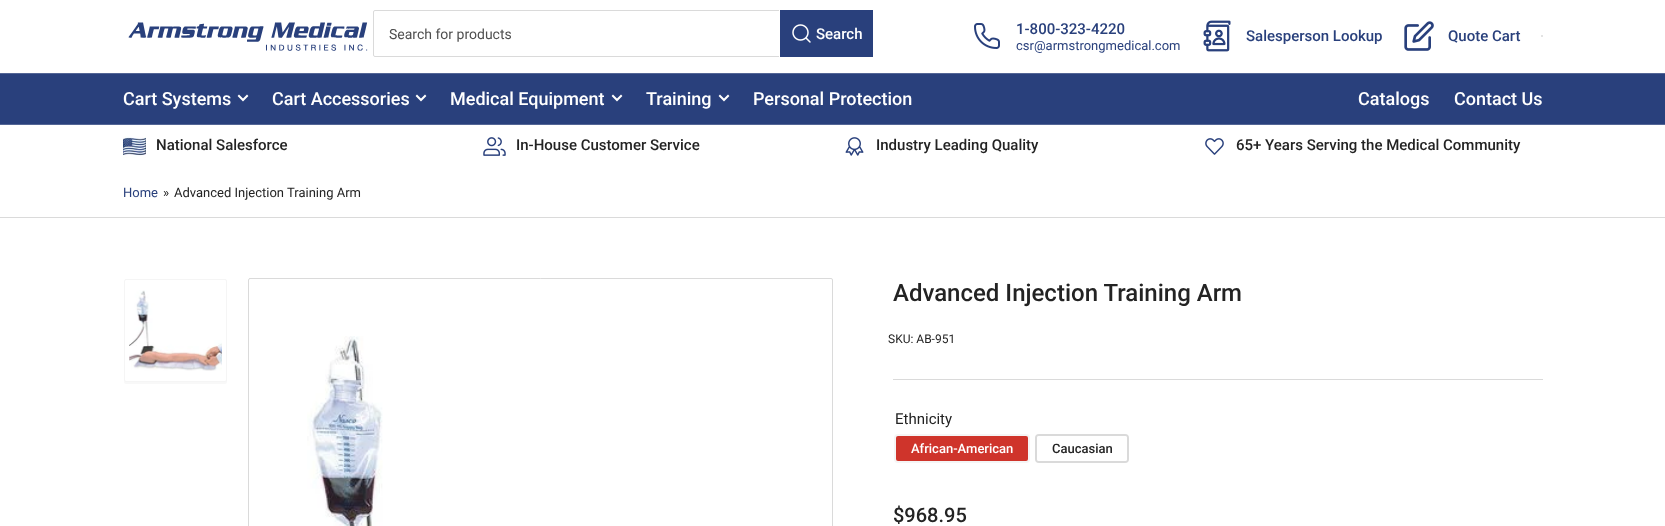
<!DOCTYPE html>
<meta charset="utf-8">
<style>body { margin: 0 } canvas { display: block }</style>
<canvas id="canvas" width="1665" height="526"></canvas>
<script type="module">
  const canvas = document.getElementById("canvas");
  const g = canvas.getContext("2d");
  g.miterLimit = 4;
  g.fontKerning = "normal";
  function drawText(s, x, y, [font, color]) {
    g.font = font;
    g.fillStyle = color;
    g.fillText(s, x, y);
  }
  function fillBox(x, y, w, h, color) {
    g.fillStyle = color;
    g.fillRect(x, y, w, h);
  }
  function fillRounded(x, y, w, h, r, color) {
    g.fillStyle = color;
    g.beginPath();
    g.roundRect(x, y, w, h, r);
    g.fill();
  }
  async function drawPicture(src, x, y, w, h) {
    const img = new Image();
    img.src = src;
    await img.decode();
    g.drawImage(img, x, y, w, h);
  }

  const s1 = ["14px Roboto", "#4F4F4F"];
  const s2 = ["500 15px Roboto", "#FFFFFF"];
  const s3 = ["500 15px Roboto", "#29407C"];
  const s4 = ["13px Roboto", "#29407C"];
  const s5 = ["500 18px Roboto", "#FFFFFF"];
  const s6 = ["500 15px Roboto", "#232323"];
  const s7 = ["13px Roboto", "#232323"];
  const s8 = ["500 24px Roboto", "#232323"];
  const s9 = ["12px Roboto", "#232323"];
  const s10 = ["15px Roboto", "#232323"];
  const s11 = ["500 13px Roboto", "#FFFFFF"];
  const s12 = ["500 13px Roboto", "#232323"];
  const s13 = ["500 20px Roboto", "#232323"];

  fillBox(0, 0, 1665, 526, "#FFFFFF");
  await drawPicture("pic1.png", 128, 22, 240, 29);
  g.beginPath();
  g.roundRect(373.5, 10.5, 499, 46, 1.5);
  g.strokeStyle = "#DADADA";
  g.stroke();
  drawText("Search for products", 389, 39, s1);
  g.strokeStyle = "#FFFFFF";
  g.strokeRect(779.5, 9.5, 94, 48);
  fillBox(780, 10, 93, 47, "#29407C");
  await drawPicture("pic2.png", 792, 24, 19, 19);
  drawText("Search", 816, 39, s2);
  await drawPicture("pic3.png", 974, 23, 26, 26);
  drawText("1-800-323-4220", 1016, 34, s3);
  drawText("csr@armstrongmedical.com", 1016, 50, s4);
  await drawPicture("pic4.png", 1203, 20, 28, 32);
  drawText("Salesperson Lookup", 1246, 41, s3);
  await drawPicture("pic5.png", 1404, 21, 30, 30);
  drawText("Quote Cart", 1448, 41, s3);
  g.fillStyle = "#DADADA";
  g.beginPath();
  g.arc(1542, 36, 1, 0, Math.PI * 2);
  g.fill();
  fillBox(0, 74, 1665, 50, "#29407C");
  fillBox(0, 73, 1665, 1, "#546696");
  fillBox(0, 124, 1665, 1, "#546696");
  drawText("Cart Systems", 123, 105, s5);
  g.beginPath();
  g.moveTo(247, 96);
  g.lineTo(243, 100);
  g.lineTo(239, 96);
  g.lineWidth = 2;
  g.lineCap = "square";
  g.stroke();
  drawText("Cart Accessories", 272, 105, s5);
  g.beginPath();
  g.moveTo(425, 96);
  g.lineTo(421, 100);
  g.lineTo(417, 96);
  g.stroke();
  drawText("Medical Equipment", 450, 105, s5);
  g.beginPath();
  g.moveTo(621, 96);
  g.lineTo(617, 100);
  g.lineTo(613, 96);
  g.stroke();
  drawText("Training", 646, 105, s5);
  g.beginPath();
  g.moveTo(728, 96);
  g.lineTo(724, 100);
  g.lineTo(720, 96);
  g.stroke();
  drawText("Personal Protection", 753, 105, s5);
  drawText("Catalogs", 1358, 105, s5);
  drawText("Contact Us", 1454, 105, s5);
  await drawPicture("pic6.png", 123, 136, 23, 22);
  drawText("National Salesforce", 156, 150, s6);
  await drawPicture("pic7.png", 483, 137, 23, 19);
  drawText("In-House Customer Service", 516, 150, s6);
  await drawPicture("pic8.png", 845, 137, 19, 19);
  drawText("Industry Leading Quality", 876, 150, s6);
  await drawPicture("pic9.png", 1205, 138, 19, 17);
  drawText("65+ Years Serving the Medical Community", 1236, 150, s6);
  fillBox(0, 217, 1665, 1, "#DADADA");
  drawText("Home", 123, 197, s4);
  drawText("»", 163, 197, s7);
  drawText("Advanced Injection Training Arm", 174, 197, s7);
  g.fillStyle = "#F8F8F8";
  g.beginPath();
  g.moveTo(124, 380);
  g.lineTo(124, 382);
  g.bezierCurveTo(124, 383, 125, 384, 126, 384);
  g.lineTo(225, 384);
  g.bezierCurveTo(226, 384, 227, 383, 227, 382);
  g.lineTo(227, 380);
  g.lineTo(227, 381);
  g.lineTo(225, 382);
  g.lineTo(126, 382);
  g.bezierCurveTo(125, 382, 124, 381, 124, 380);
  g.closePath();
  g.fill();
  g.beginPath();
  g.roundRect(124.5, 279.5, 102, 102, 1.5);
  g.strokeStyle = "#F5F5F5";
  g.lineWidth = 1;
  g.stroke();
  await drawPicture("pic10.png", 129, 290, 93, 81);
  g.beginPath();
  g.roundRect(248.5, 278.5, 584, 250, 1.5);
  g.strokeStyle = "#DADADA";
  g.stroke();
  await drawPicture("pic11.png", 307, 336, 76, 190);
  fillBox(893, 379, 650, 1, "#DADADA");
  drawText("Advanced Injection Training Arm", 893, 301, s8);
  drawText("SKU: AB-951", 888, 343, s9);
  drawText("Ethnicity", 895, 424, s10);
  g.beginPath();
  g.roundRect(895, 435, 134, 27, 3);
  g.strokeStyle = "#F5F5F5";
  g.lineWidth = 2;
  g.stroke();
  fillRounded(896, 436, 132, 25, 2, "#CF342B");
  drawText("African-American", 911, 453, s11);
  g.beginPath();
  g.roundRect(1036, 435, 92, 27, 3);
  g.strokeStyle = "#DADADA";
  g.stroke();
  fillRounded(1037, 436, 90, 25, 2, "#FFFFFF");
  drawText("Caucasian", 1052, 453, s12);
  drawText("$968.95", 893, 522, s13);
</script>
